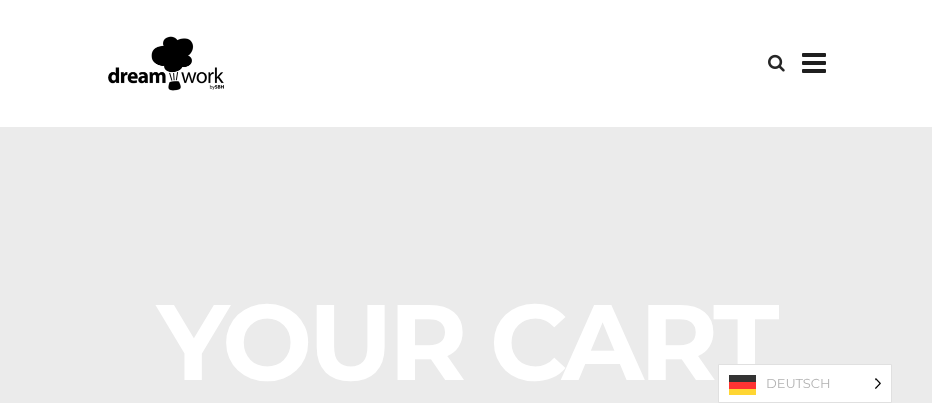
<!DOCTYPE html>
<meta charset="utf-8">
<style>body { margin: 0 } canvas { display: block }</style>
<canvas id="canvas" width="932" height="403"></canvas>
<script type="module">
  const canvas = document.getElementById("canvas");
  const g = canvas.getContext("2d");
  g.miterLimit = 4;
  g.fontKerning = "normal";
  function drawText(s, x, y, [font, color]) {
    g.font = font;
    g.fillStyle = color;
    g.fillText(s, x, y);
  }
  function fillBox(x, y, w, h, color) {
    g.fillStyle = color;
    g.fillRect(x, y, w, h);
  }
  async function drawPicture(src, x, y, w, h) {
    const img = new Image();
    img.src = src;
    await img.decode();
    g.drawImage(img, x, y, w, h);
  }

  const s1 = ["bold 107px Montserrat", "#FFFFFF"];
  const s2 = ["13px Montserrat", "#B2B2B2"];

  fillBox(0, 0, 932, 403, "#EBEBEB");
  fillBox(0, 0, 932, 127, "#FFFFFF");
  await drawPicture("pic1.png", 108, 36, 116, 55);
  await drawPicture("pic2.png", 768, 54, 17, 18);
  await drawPicture("pic3.png", 802, 53, 24, 20);
  g.letterSpacing = "-4px";
  drawText("YOUR CART", 157, 380, s1);
  g.beginPath();
  g.rect(718.5, 364.5, 173, 38);
  g.fill();
  g.strokeStyle = "#E0E0E0";
  g.stroke();
  fillBox(729, 389, 27, 6, "#FFCC00");
  fillBox(729, 375, 27, 7, "#000001");
  fillBox(729, 382, 27, 7, "#FF0000");
  fillBox(729, 375, 27, 20, "rgba(255, 255, 255, 0.2)");
  g.letterSpacing = "0px";
  drawText("DEUTSCH", 766, 388, s2);
  await drawPicture("pic4.png", 875, 378, 6, 11);
</script>
